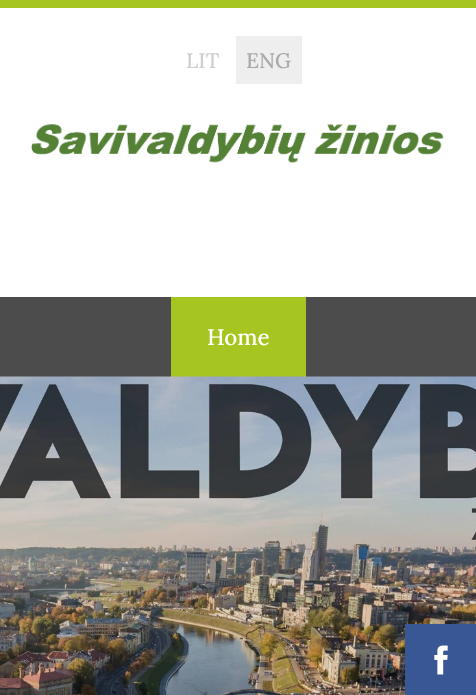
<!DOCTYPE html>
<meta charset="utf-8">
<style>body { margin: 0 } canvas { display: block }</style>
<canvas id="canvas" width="476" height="695"></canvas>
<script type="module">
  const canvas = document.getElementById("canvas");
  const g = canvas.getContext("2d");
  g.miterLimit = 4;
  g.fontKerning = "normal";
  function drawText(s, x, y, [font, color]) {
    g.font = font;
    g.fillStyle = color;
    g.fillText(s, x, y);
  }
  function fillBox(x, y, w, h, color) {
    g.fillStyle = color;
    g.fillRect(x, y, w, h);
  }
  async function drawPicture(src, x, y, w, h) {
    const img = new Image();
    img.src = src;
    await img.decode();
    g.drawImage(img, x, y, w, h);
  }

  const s1 = ["500 21px Lora", "#CFCFCF"];
  const s2 = ["500 21px Lora", "#AAAAAA"];
  const s3 = ["500 22.5px Lora", "#FFFFFF"];

  fillBox(0, 0, 476, 695, "#FFFFFF");
  fillBox(0, 0, 476, 8, "#A7C520");
  drawText("LIT", 186, 68, s1);
  fillBox(236, 36, 66, 48, "#EEEEEE");
  drawText("ENG", 246, 68, s2);
  await drawPicture("pic1.png", 31, 124, 413, 39);
  fillBox(0, 297, 476, 80, "#4C4C4C");
  fillBox(171, 297, 135, 80, "#A7C520");
  drawText("Home", 207, 345, s3);
  await drawPicture("pic2.png", 0, 376, 476, 319);
  fillBox(405, 624, 71, 71, "#3A5795");
  await drawPicture("pic3.png", 434, 645, 14, 30);
</script>
